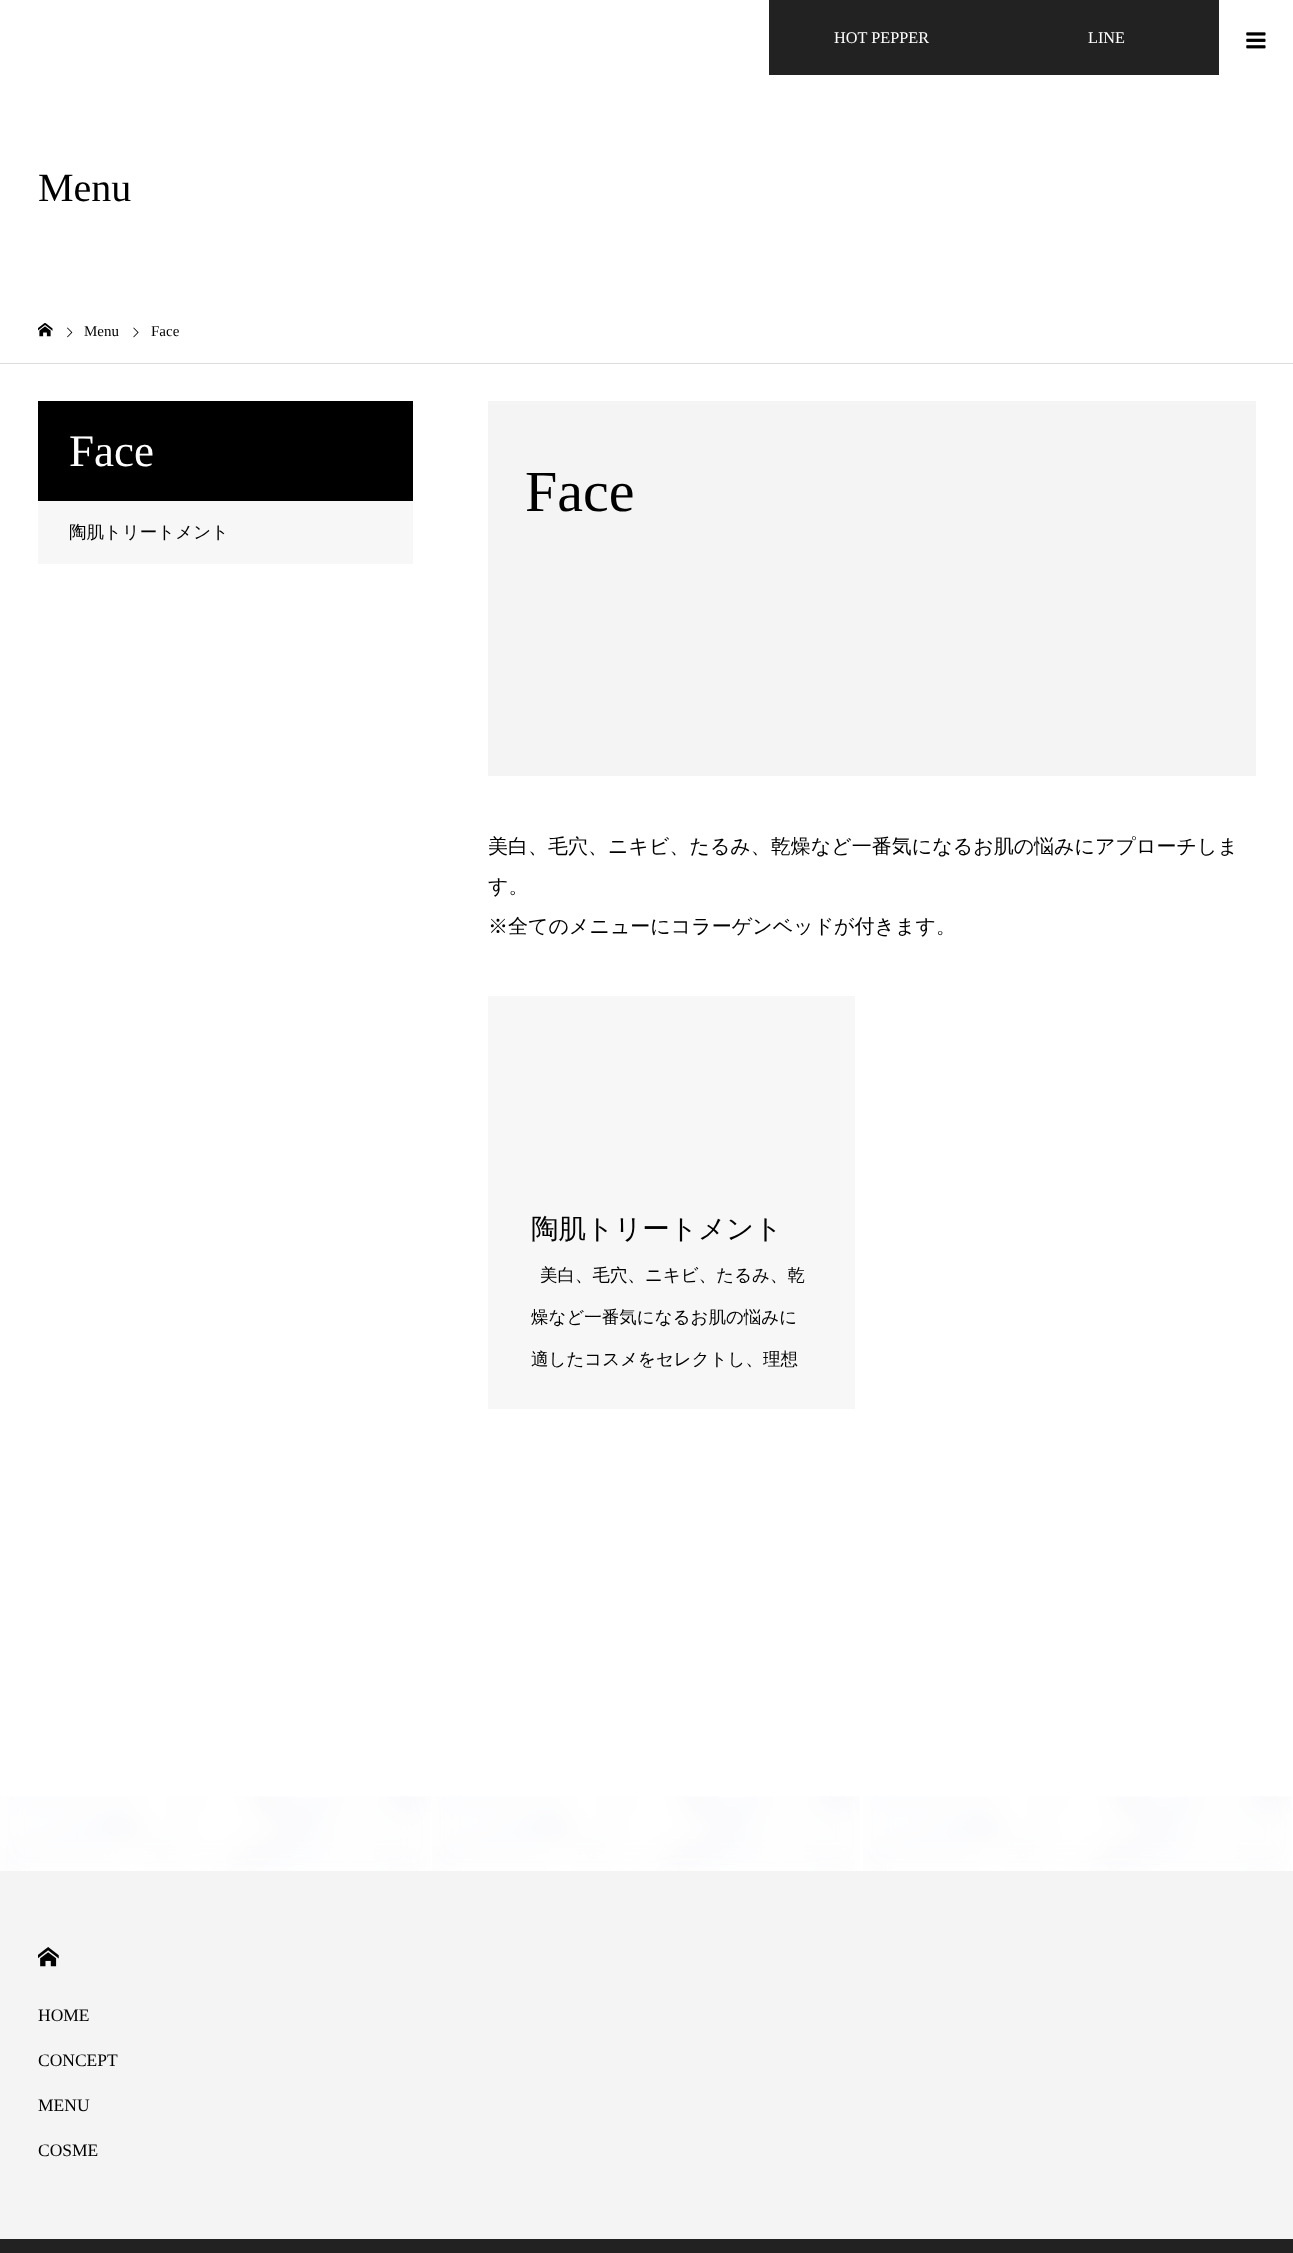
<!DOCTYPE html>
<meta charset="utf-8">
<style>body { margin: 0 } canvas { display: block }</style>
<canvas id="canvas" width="1293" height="2253"></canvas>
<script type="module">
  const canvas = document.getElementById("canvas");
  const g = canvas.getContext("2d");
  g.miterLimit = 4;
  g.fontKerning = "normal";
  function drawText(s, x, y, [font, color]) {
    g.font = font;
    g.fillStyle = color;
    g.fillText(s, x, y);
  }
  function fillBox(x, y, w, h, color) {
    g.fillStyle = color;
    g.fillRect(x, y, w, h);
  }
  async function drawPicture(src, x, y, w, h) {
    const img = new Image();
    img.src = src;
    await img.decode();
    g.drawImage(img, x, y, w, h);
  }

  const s1 = ["16.25px Liberation Serif", "#FFFFFF"];
  const s2 = ["40px Liberation Serif", "#000000"];
  const s3 = ["15px Liberation Serif", "#000000"];
  const s4 = ["45px Liberation Serif", "#FFFFFF"];
  const s5 = ["500 17.5px WenQuanYi Zen Hei", "#000000"];
  const s6 = ["58px Liberation Serif", "#000000"];
  const s7 = ["500 20px WenQuanYi Zen Hei", "#000000"];
  const s8 = ["500 27.5px WenQuanYi Zen Hei", "#000000"];
  const s9 = ["17.5px Liberation Serif", "#000000"];

  fillBox(0, 0, 1293, 2253, "#FFFFFF");
  fillBox(769, 0, 450, 75, "#222222");
  drawText("HOT PEPPER", 834, 43, s1);
  drawText("LINE", 1088, 43, s1);
  await drawPicture("pic1.png", 1246, 32, 20, 17);
  drawText("Menu", 38, 201, s2);
  fillBox(0, 363, 1293, 1, "#DDDDDD");
  await drawPicture("pic2.png", 38, 323, 15, 14);
  await drawPicture("pic3.png", 67, 327, 6, 11);
  drawText("Menu", 84, 336, s3);
  await drawPicture("pic4.png", 133, 327, 6, 11);
  drawText("Face", 151, 336, s3);
  fillBox(38, 401, 375, 100, "#000000");
  drawText("Face", 69, 466, s4);
  fillBox(38, 501, 375, 63, "#F7F7F8");
  drawText("陶肌トリートメント", 69, 538, s5);
  fillBox(488, 401, 768, 375, "#F4F4F5");
  drawText("Face", 525, 511, s6);
  drawText("美白、毛穴、ニキビ、たるみ、乾燥など一番気になるお肌の悩みにアプローチしま", 488, 853, s7);
  drawText("す。", 488, 893, s7);
  drawText("※全てのメニューにコラーゲンベッドが付きます。", 488, 933, s7);
  fillBox(488, 996, 367, 413, "#F7F7F8");
  drawText("陶肌トリートメント", 531, 1238, s8);
  drawText("美白、毛穴、ニキビ、たるみ、乾", 540, 1281, s5);
  drawText("燥など一番気になるお肌の悩みに", 531, 1323, s5);
  drawText("適したコスメをセレクトし、理想", 531, 1365, s5);
  await drawPicture("pic5.png", 0, 1796, 431, 75);
  await drawPicture("pic6.png", 432, 1796, 428, 75);
  await drawPicture("pic7.png", 863, 1796, 429, 75);
  fillBox(0, 1871, 1293, 368, "#F4F4F5");
  await drawPicture("pic8.png", 38, 1947, 21, 20);
  drawText("HOME", 38, 2021, s9);
  drawText("CONCEPT", 38, 2066, s9);
  drawText("MENU", 38, 2111, s9);
  drawText("COSME", 38, 2156, s9);
  fillBox(0, 2239, 1293, 14, "#222222");
</script>
